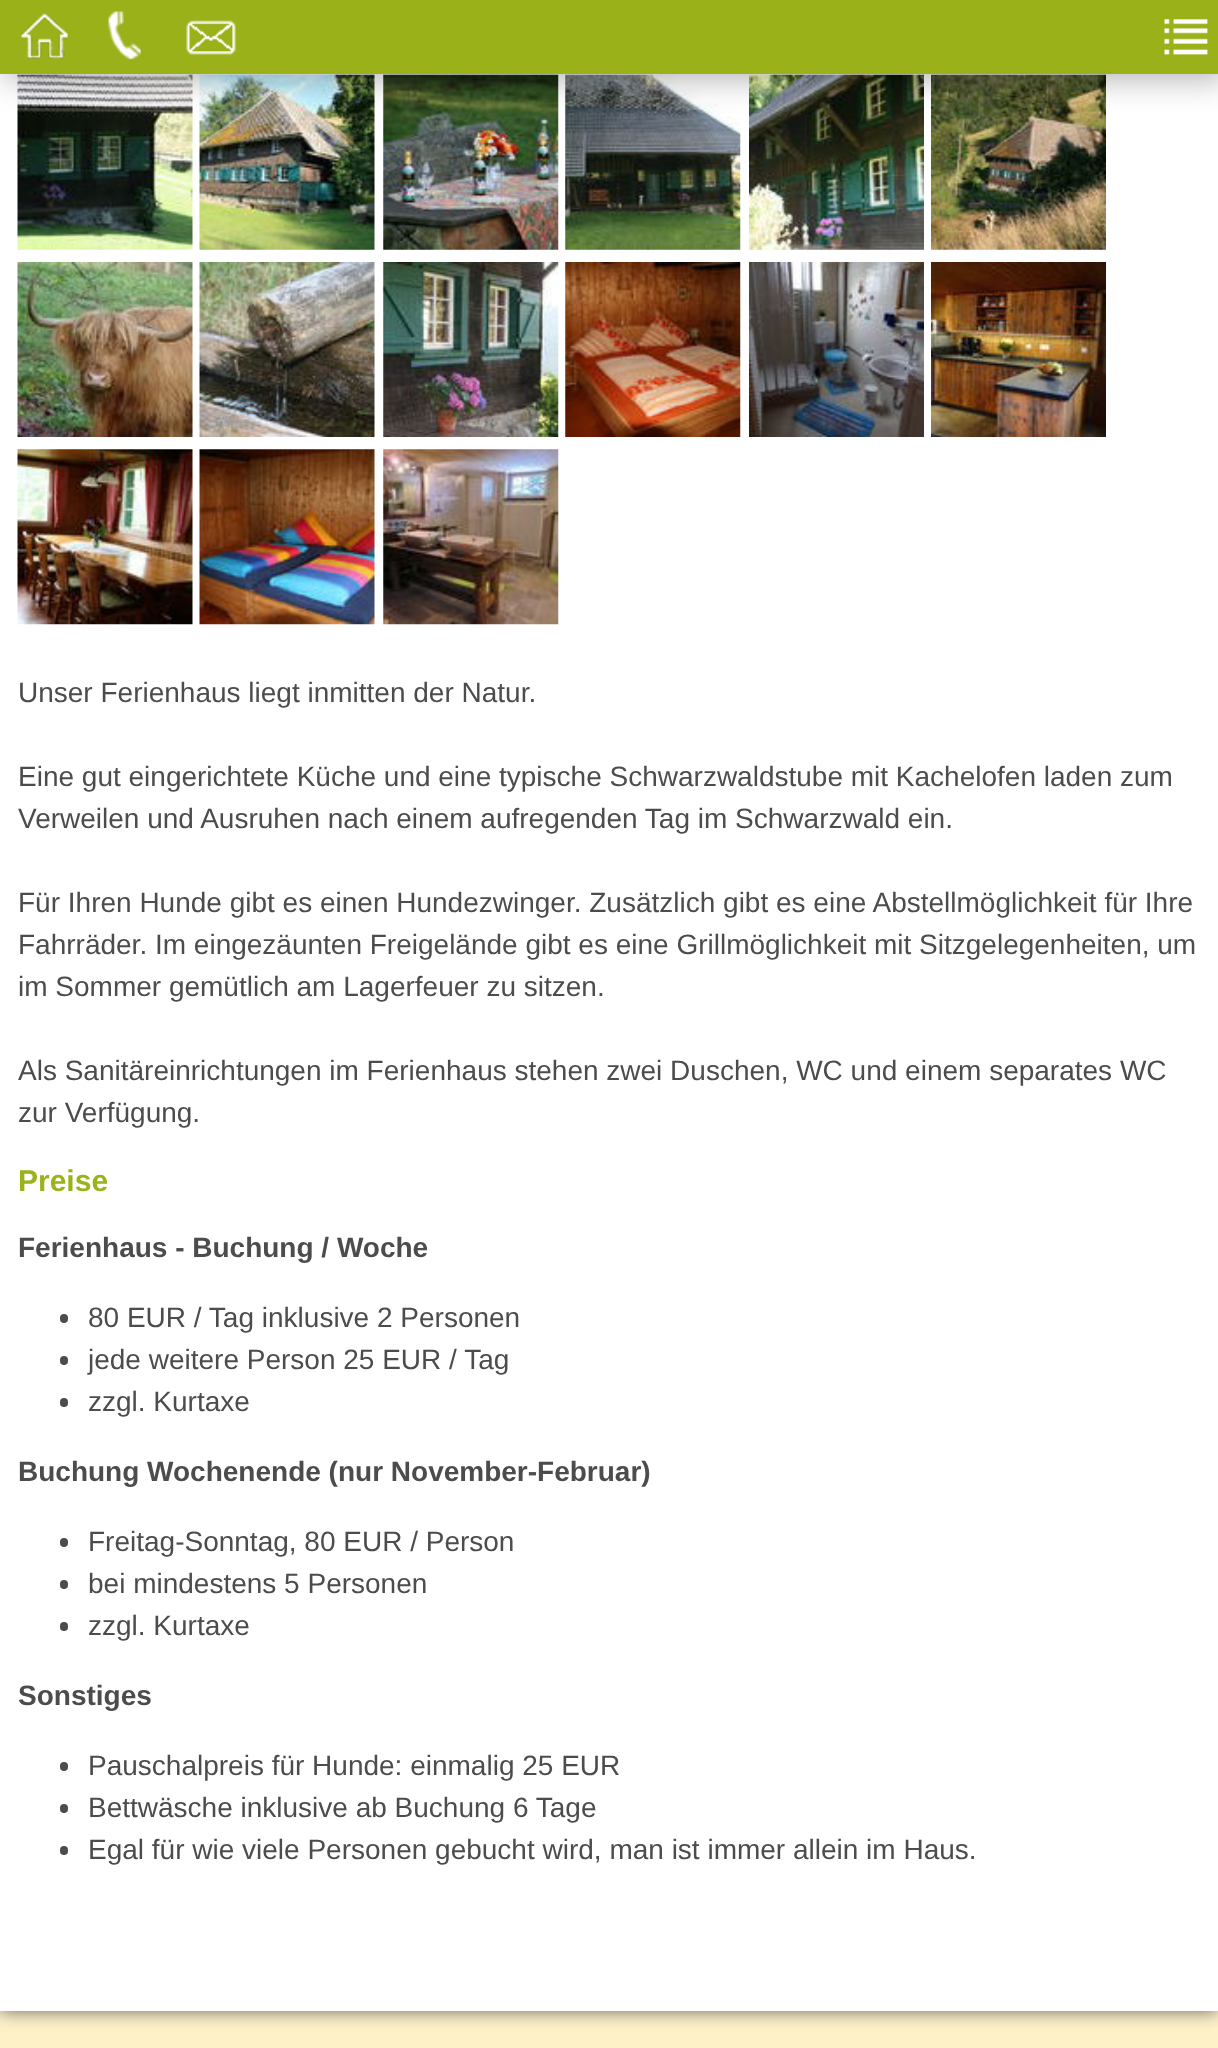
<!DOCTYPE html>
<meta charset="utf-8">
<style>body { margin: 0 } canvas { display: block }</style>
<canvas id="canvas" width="1218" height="2048"></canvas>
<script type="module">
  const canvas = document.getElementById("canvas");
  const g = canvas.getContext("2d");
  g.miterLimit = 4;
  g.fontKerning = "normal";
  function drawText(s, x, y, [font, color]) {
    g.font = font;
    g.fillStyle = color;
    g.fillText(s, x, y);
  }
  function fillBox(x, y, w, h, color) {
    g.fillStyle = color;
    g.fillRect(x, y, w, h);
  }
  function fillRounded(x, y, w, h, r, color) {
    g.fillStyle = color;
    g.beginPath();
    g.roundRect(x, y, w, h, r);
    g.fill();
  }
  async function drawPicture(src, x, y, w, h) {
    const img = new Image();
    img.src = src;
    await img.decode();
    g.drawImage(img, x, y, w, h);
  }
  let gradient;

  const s1 = ["28px Liberation Sans", "#4C4C4C"];
  const s2 = ["bold 30px Liberation Sans", "#9CB21B"];
  const s3 = ["bold 28px Liberation Sans", "#4C4C4C"];

  fillBox(0, 0, 1218, 2048, "#FFFFFF");
  gradient = g.createLinearGradient(609, -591, 609, 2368);
  gradient.addColorStop(0, "#FEDA9C");
  gradient.addColorStop(1, "#FEF4CD");
  g.fillStyle = gradient;
  g.fillRect(0, 2011, 1218, 37);
  g.fillStyle = "#666666";
  g.filter = "blur(9px)";
  g.beginPath();
  g.rect(0, -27, 1218, 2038);
  g.fill();
  g.filter = "none";
  fillBox(0, 74, 1218, 1937, "#FFFFFF");
  await drawPicture("pic5.png", 17, 74, 176, 176);
  await drawPicture("pic6.png", 199, 74, 176, 176);
  await drawPicture("pic7.png", 383, 74, 176, 176);
  await drawPicture("pic8.png", 565, 74, 176, 176);
  await drawPicture("pic9.png", 749, 74, 175, 176);
  await drawPicture("pic10.png", 931, 74, 175, 176);
  g.fillStyle = "rgba(0, 0, 0, 0.3)";
  g.filter = "blur(16px)";
  g.beginPath();
  g.rect(5, 16, 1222, 63);
  g.fill();
  g.filter = "none";
  fillBox(0, 0, 1218, 74, "#9BB11A");
  await drawPicture("pic1.png", 21, 12, 47, 48);
  await drawPicture("pic2.png", 108, 11, 33, 49);
  await drawPicture("pic3.png", 186, 20, 50, 35);
  await drawPicture("pic4.png", 1164, 19, 44, 36);
  await drawPicture("pic11.png", 17, 262, 176, 175);
  await drawPicture("pic12.png", 199, 262, 176, 175);
  await drawPicture("pic13.png", 383, 262, 176, 175);
  await drawPicture("pic14.png", 565, 262, 176, 175);
  await drawPicture("pic15.png", 749, 262, 175, 175);
  await drawPicture("pic16.png", 931, 262, 175, 175);
  await drawPicture("pic17.png", 17, 449, 176, 176);
  await drawPicture("pic18.png", 199, 449, 176, 176);
  await drawPicture("pic19.png", 383, 449, 176, 176);
  drawText("Unser Ferienhaus liegt inmitten der Natur.", 18, 702, s1);
  drawText("Eine gut eingerichtete Küche und eine typische Schwarzwaldstube mit Kachelofen laden zum", 18, 786, s1);
  drawText("Verweilen und Ausruhen nach einem aufregenden Tag im Schwarzwald ein.", 18, 828, s1);
  drawText("Für Ihren Hunde gibt es einen Hundezwinger. Zusätzlich gibt es eine Abstellmöglichkeit für Ihre", 18, 912, s1);
  drawText("Fahrräder. Im eingezäunten Freigelände gibt es eine Grillmöglichkeit mit Sitzgelegenheiten, um", 18, 954, s1);
  drawText("im Sommer gemütlich am Lagerfeuer zu sitzen.", 18, 996, s1);
  drawText("Als Sanitäreinrichtungen im Ferienhaus stehen zwei Duschen, WC und einem separates WC", 18, 1080, s1);
  drawText("zur Verfügung.", 18, 1122, s1);
  drawText("Preise", 18, 1191, s2);
  drawText("Ferienhaus - Buchung / Woche", 18, 1257, s3);
  fillRounded(60, 1314, 8, 9, 4, "#4C4C4C");
  drawText("80 EUR / Tag inklusive 2 Personen", 88, 1327, s1);
  fillRounded(60, 1356, 8, 9, 4, "#4C4C4C");
  drawText("jede weitere Person 25 EUR / Tag", 88, 1369, s1);
  fillRounded(60, 1398, 8, 9, 4, "#4C4C4C");
  drawText("zzgl. Kurtaxe", 88, 1411, s1);
  drawText("Buchung Wochenende (nur November-Februar)", 18, 1481, s3);
  fillRounded(60, 1538, 8, 9, 4, "#4C4C4C");
  drawText("Freitag-Sonntag, 80 EUR / Person", 88, 1551, s1);
  fillRounded(60, 1580, 8, 9, 4, "#4C4C4C");
  drawText("bei mindestens 5 Personen", 88, 1593, s1);
  fillRounded(60, 1622, 8, 9, 4, "#4C4C4C");
  drawText("zzgl. Kurtaxe", 88, 1635, s1);
  drawText("Sonstiges", 18, 1705, s3);
  fillRounded(60, 1762, 8, 9, 4, "#4C4C4C");
  drawText("Pauschalpreis für Hunde: einmalig 25 EUR", 88, 1775, s1);
  fillRounded(60, 1804, 8, 9, 4, "#4C4C4C");
  drawText("Bettwäsche inklusive ab Buchung 6 Tage", 88, 1817, s1);
  fillRounded(60, 1846, 8, 9, 4, "#4C4C4C");
  drawText("Egal für wie viele Personen gebucht wird, man ist immer allein im Haus.", 88, 1859, s1);
</script>
